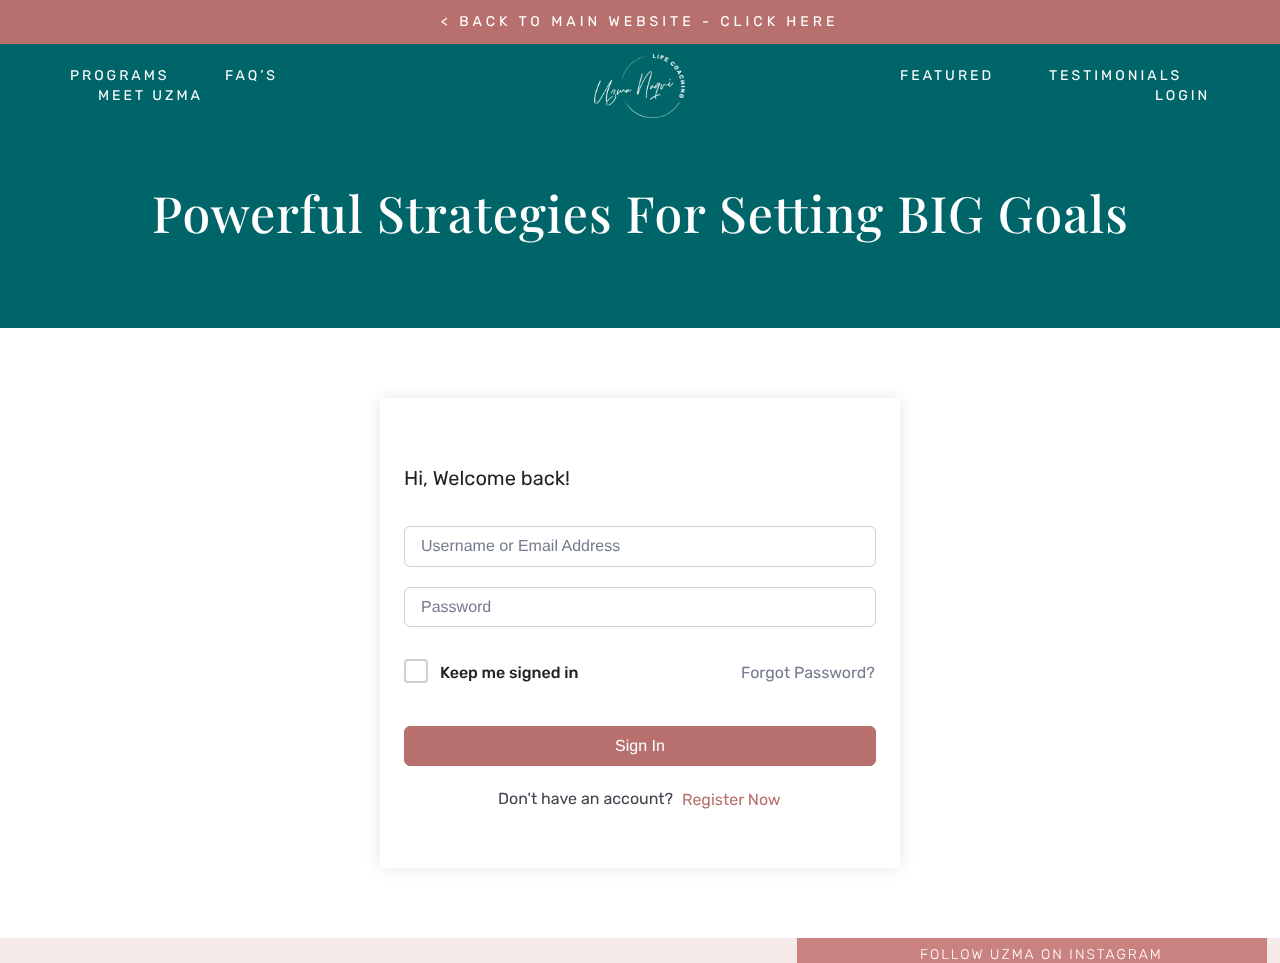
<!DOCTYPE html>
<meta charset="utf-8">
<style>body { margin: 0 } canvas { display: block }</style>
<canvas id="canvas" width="1280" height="963"></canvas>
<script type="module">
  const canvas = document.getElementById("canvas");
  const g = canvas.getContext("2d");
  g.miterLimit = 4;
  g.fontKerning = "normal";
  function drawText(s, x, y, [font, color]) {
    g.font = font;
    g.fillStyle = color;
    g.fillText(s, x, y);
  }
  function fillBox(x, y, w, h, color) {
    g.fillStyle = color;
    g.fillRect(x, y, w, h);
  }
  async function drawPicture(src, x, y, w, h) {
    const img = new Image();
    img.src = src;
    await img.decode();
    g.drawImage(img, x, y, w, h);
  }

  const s1 = ["14px Rubik", "#FFFFFF"];
  const s2 = ["500 50px Playfair Display", "#FFFFFF"];
  const s3 = ["20px Rubik", "#212327"];
  const s4 = ["16px Liberation Sans", "#757C8E"];
  const s5 = ["500 16px Rubik", "#212327"];
  const s6 = ["16px Rubik", "#757C8E"];
  const s7 = ["16px Liberation Sans", "#FFFFFF"];
  const s8 = ["16px Rubik", "#41454F"];
  const s9 = ["16px Rubik", "#B7706E"];
  const s10 = ["300 14px Rubik", "#FFFFFF"];

  fillBox(0, 0, 1280, 963, "#FFFFFF");
  fillBox(0, 0, 1280, 44, "#B7706E");
  g.letterSpacing = "4px";
  drawText("< BACK TO MAIN WEBSITE - CLICK HERE", 441, 26, s1);
  fillBox(0, 44, 1280, 284, "#006569");
  g.letterSpacing = "3px";
  drawText("PROGRAMS", 70, 80, s1);
  drawText("FAQ’S", 225, 80, s1);
  drawText("MEET UZMA", 98, 100, s1);
  await drawPicture("pic1.png", 594, 54, 91, 64);
  drawText("FEATURED", 900, 80, s1);
  drawText("TESTIMONIALS", 1049, 80, s1);
  drawText("LOGIN", 1155, 100, s1);
  g.letterSpacing = "1px";
  drawText("Powerful Strategies For Setting BIG Goals", 152, 233, s2);
  g.save();
  g.beginPath();
  g.moveTo(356, 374);
  g.lineTo(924, 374);
  g.lineTo(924, 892);
  g.lineTo(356, 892);
  g.closePath();
  g.moveTo(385, 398);
  g.lineTo(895, 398);
  g.bezierCurveTo(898, 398, 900, 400, 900, 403);
  g.lineTo(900, 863);
  g.bezierCurveTo(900, 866, 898, 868, 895, 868);
  g.lineTo(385, 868);
  g.bezierCurveTo(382, 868, 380, 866, 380, 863);
  g.lineTo(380, 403);
  g.bezierCurveTo(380, 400, 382, 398, 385, 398);
  g.closePath();
  g.clip("evenodd");
  g.fillStyle = "rgba(0, 0, 0, 0.1)";
  g.filter = "blur(7.5px)";
  g.beginPath();
  g.roundRect(380, 398, 520, 470, 5);
  g.fill();
  g.filter = "none";
  g.restore();
  g.letterSpacing = "0px";
  drawText("Hi, Welcome back!", 404, 485, s3);
  g.beginPath();
  g.roundRect(404.5, 526.5, 471, 40, 5.5);
  g.strokeStyle = "#CDCFD5";
  g.stroke();
  drawText("Username or Email Address", 421, 551, s4);
  g.beginPath();
  g.roundRect(404.5, 587.5, 471, 39, 5.5);
  g.stroke();
  drawText("Password", 421, 612, s4);
  g.beginPath();
  g.roundRect(405, 660, 22, 22, 3);
  g.lineWidth = 2;
  g.stroke();
  drawText("Keep me signed in", 440, 678, s5);
  drawText("Forgot Password?", 741, 678, s6);
  g.fillStyle = "#B7706E";
  g.beginPath();
  g.roundRect(404.5, 726.5, 471, 39, 5.5);
  g.fill();
  g.strokeStyle = "#B7706E";
  g.lineWidth = 1;
  g.stroke();
  drawText("Sign In", 615, 751, s7);
  drawText("Don't have an account?", 498, 804, s8);
  drawText("Register Now", 682, 805, s9);
  fillBox(0, 938, 1280, 25, "#F5EAE8");
  fillBox(797, 938, 470, 25, "#C98280");
  g.letterSpacing = "2px";
  drawText("FOLLOW UZMA ON INSTAGRAM", 920, 959, s10);
</script>
